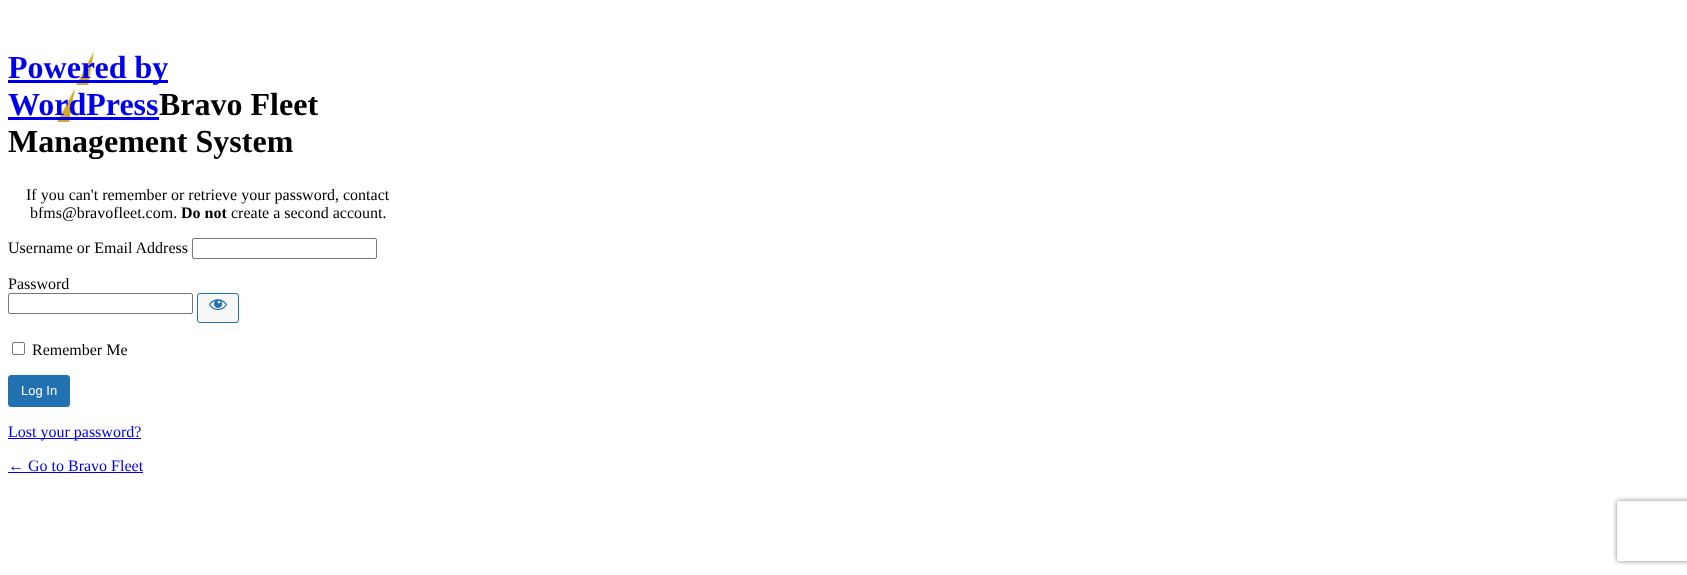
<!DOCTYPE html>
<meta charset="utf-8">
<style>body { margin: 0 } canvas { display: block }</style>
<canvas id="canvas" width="1687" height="575"></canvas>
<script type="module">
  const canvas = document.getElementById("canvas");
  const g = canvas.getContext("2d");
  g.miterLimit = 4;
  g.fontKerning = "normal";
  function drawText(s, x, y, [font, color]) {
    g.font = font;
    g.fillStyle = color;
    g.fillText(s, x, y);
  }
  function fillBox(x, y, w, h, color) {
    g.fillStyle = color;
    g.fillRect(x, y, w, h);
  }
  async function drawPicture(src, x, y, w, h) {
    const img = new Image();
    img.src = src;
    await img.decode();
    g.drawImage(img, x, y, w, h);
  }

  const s1 = ["bold 32px Liberation Serif", "#0000EE"];
  const s2 = ["bold 32px Liberation Serif", "#000000"];
  const s3 = ["16px Liberation Serif", "#000000"];
  const s4 = ["bold 16px Liberation Serif", "#000000"];
  const s5 = ["13px Liberation Sans", "#FFFFFF"];
  const s6 = ["16px Liberation Serif", "#0000EE"];

  fillBox(0, 0, 1687, 575, "#FFFFFF");
  await drawPicture("pic1.png", 57, 51, 37, 71);
  fillBox(8, 80, 160, 3, "#0000EE");
  drawText("Powered by", 8, 78, s1);
  drawText("WordPress", 8, 115, s1);
  fillBox(8, 117, 151, 3, "#0000EE");
  drawText("Bravo Fleet", 159, 115, s2);
  drawText("Management System", 8, 152, s2);
  drawText("If you can't remember or retrieve your password, contact", 26, 200, s3);
  drawText("bfms@bravofleet.com.", 30, 218, s3);
  drawText("Do not", 181, 218, s4);
  drawText("create a second account.", 231, 218, s3);
  drawText("Username or Email Address", 8, 253, s3);
  g.beginPath();
  g.roundRect(192.5, 238.5, 184, 20, 1.5);
  g.strokeStyle = "#767676";
  g.stroke();
  drawText("Password", 8, 289, s3);
  g.beginPath();
  g.roundRect(8.5, 293.5, 184, 20, 1.5);
  g.stroke();
  g.fillStyle = "#F6F7F7";
  g.beginPath();
  g.roundRect(197.5, 293.5, 41, 29, 2.5);
  g.fill();
  g.strokeStyle = "#2271B1";
  g.stroke();
  await drawPicture("pic2.png", 209, 299, 18, 12);
  g.beginPath();
  g.roundRect(12.5, 342.5, 12, 12, 1.5);
  g.strokeStyle = "#767676";
  g.stroke();
  drawText("Remember Me", 32, 355, s3);
  g.fillStyle = "#2271B1";
  g.beginPath();
  g.roundRect(8.5, 375.5, 61, 31, 2.5);
  g.fill();
  g.strokeStyle = "#2271B1";
  g.stroke();
  drawText("Log In", 21, 395, s5);
  fillBox(8, 438, 133, 1, "#0000EE");
  drawText("Lost your password?", 8, 437, s6);
  drawText("← Go to Bravo Fleet", 8, 471, s6);
  fillBox(8, 472, 135, 1, "#0000EE");
  g.save();
  g.beginPath();
  g.moveTo(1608, 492);
  g.lineTo(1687, 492);
  g.lineTo(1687, 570);
  g.lineTo(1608, 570);
  g.closePath();
  g.moveTo(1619, 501);
  g.lineTo(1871, 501);
  g.bezierCurveTo(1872, 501, 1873, 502, 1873, 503);
  g.lineTo(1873, 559);
  g.bezierCurveTo(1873, 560, 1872, 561, 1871, 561);
  g.lineTo(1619, 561);
  g.bezierCurveTo(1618, 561, 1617, 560, 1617, 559);
  g.lineTo(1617, 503);
  g.bezierCurveTo(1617, 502, 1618, 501, 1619, 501);
  g.closePath();
  g.clip("evenodd");
  g.fillStyle = "#808080";
  g.filter = "blur(2.5px)";
  g.beginPath();
  g.roundRect(1617, 501, 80, 60, 2);
  g.fill();
  g.filter = "none";
  g.restore();
</script>
